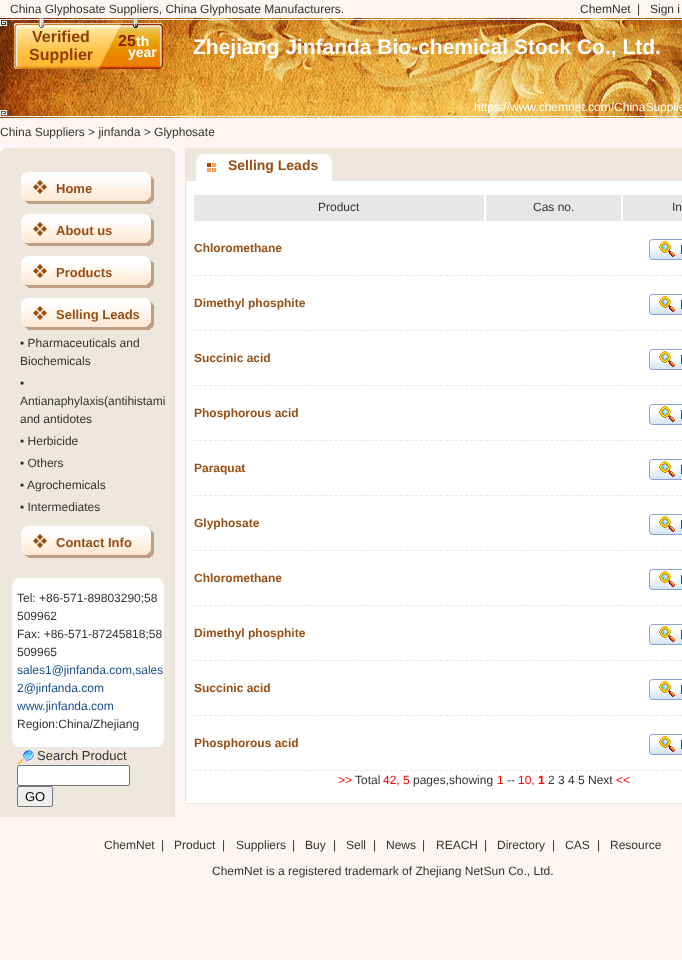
<!DOCTYPE html>
<meta charset="utf-8">
<style>body { margin: 0 } canvas { display: block }</style>
<canvas id="canvas" width="682" height="960"></canvas>
<script type="module">
  const canvas = document.getElementById("canvas");
  const g = canvas.getContext("2d");
  g.miterLimit = 4;
  g.fontKerning = "normal";
  function drawText(s, x, y, [font, color]) {
    g.font = font;
    g.fillStyle = color;
    g.fillText(s, x, y);
  }
  function fillBox(x, y, w, h, color) {
    g.fillStyle = color;
    g.fillRect(x, y, w, h);
  }
  async function drawPicture(src, x, y, w, h) {
    const img = new Image();
    img.src = src;
    await img.decode();
    g.drawImage(img, x, y, w, h);
  }

  const s1 = ["12px Liberation Sans", "#333333"];
  const s2 = ["bold 16px Liberation Sans", "#8F3F04"];
  const s3 = ["bold 16px Liberation Sans", "#862200"];
  const s4 = ["bold 14px Liberation Sans", "#FFFFFF"];
  const s5 = ["bold 21px Liberation Sans", "#FFFFFF"];
  const s6 = ["12px Liberation Sans", "#FFFFFF"];
  const s7 = ["bold 13px Liberation Sans", "#984F15"];
  const s8 = ["12px Liberation Sans", "#174F8C"];
  const s9 = ["13px Liberation Sans", "#333333"];
  const s10 = ["13px Liberation Sans", "#000000"];
  const s11 = ["bold 14px Liberation Sans", "#984F15"];
  const s12 = ["bold 12px Liberation Sans", "#984F15"];
  const s13 = ["12px Liberation Sans", "#FF0000"];
  const s14 = ["bold 12px Liberation Sans", "#FF0000"];

  fillBox(0, 0, 682, 960, "#FDF5F3");
  drawText("China Glyphosate Suppliers, China Glyphosate Manufacturers.", 10, 13, s1);
  drawText("ChemNet", 580, 13, s1);
  drawText("|", 637, 13, s1);
  drawText("Sign i", 650, 13, s1);
  await drawPicture("pic1.png", 0, 18, 682, 100);
  await drawPicture("pic2.png", 14, 18, 149, 51);
  drawText("Verified", 32, 42, s2);
  drawText("Supplier", 29, 60, s2);
  drawText("25", 118, 46, s3);
  drawText("th", 136, 46, s4);
  drawText("year", 128, 57, s4);
  drawText("Zhejiang Jinfanda Bio-chemical Stock Co., Ltd.", 193, 54, s5);
  drawText("https://www.chemnet.com/ChinaSupplie", 474, 111, s6);
  drawText("China Suppliers > jinfanda > Glyphosate", 0, 136, s1);
  fillBox(0, 152, 175, 665, "#EEE7DE");
  await drawPicture("pic3.png", 0, 148, 175, 4);
  await drawPicture("pic4.png", 21, 172, 133, 32);
  drawText("Home", 56, 193, s7);
  await drawPicture("pic4.png", 21, 214, 133, 32);
  drawText("About us", 56, 235, s7);
  await drawPicture("pic4.png", 21, 256, 133, 32);
  drawText("Products", 56, 277, s7);
  await drawPicture("pic4.png", 21, 298, 133, 32);
  drawText("Selling Leads", 56, 319, s7);
  drawText("• Pharmaceuticals and", 20, 347, s1);
  drawText("Biochemicals", 20, 365, s1);
  drawText("•", 20, 387, s1);
  drawText("Antianaphylaxis(antihistami", 20, 405, s1);
  drawText("and antidotes", 20, 423, s1);
  drawText("• Herbicide", 20, 445, s1);
  drawText("• Others", 20, 467, s1);
  drawText("•", 20, 489, s1);
  drawText("Agrochemicals", 27, 489, s1);
  drawText("• Intermediates", 20, 511, s1);
  await drawPicture("pic4.png", 21, 526, 133, 32);
  drawText("Contact Info", 56, 547, s7);
  await drawPicture("pic5.png", 12, 578, 152, 11);
  fillBox(12, 589, 152, 144, "#FFFFFF");
  drawText("Tel: +86-571-89803290;58", 17, 602, s1);
  drawText("509962", 17, 620, s1);
  drawText("Fax: +86-571-87245818;58", 17, 638, s1);
  drawText("509965", 17, 656, s1);
  drawText("sales1@jinfanda.com,sales", 17, 674, s8);
  drawText("2@jinfanda.com", 17, 692, s8);
  drawText("www.jinfanda.com", 17, 710, s8);
  drawText("Region:China/Zhejiang", 17, 728, s1);
  await drawPicture("pic6.png", 12, 733, 152, 14);
  await drawPicture("pic7.png", 17, 750, 17, 14);
  drawText("Search Product", 37, 760, s9);
  g.fillStyle = "#FFFFFF";
  g.beginPath();
  g.roundRect(17.5, 765.5, 112, 20, 1.5);
  g.fill();
  g.strokeStyle = "#767676";
  g.stroke();
  g.fillStyle = "#EFEFEF";
  g.beginPath();
  g.roundRect(17.5, 786.5, 35, 20, 1.5);
  g.fill();
  g.stroke();
  drawText("GO", 25, 801, s10);
  g.strokeStyle = "#EEE7DE";
  g.strokeRect(185.5, 148.5, 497, 655);
  fillBox(186, 149, 496, 32, "#EEE7DE");
  await drawPicture("pic8.png", 196, 154, 136, 27);
  drawText("Selling Leads", 228, 170, s11);
  fillBox(186, 181, 496, 622, "#FFFFFF");
  fillBox(194, 195, 290, 26, "#E7E7E7");
  drawText("Product", 318, 211, s1);
  fillBox(486, 195, 135, 26, "#E7E7E7");
  drawText("Cas no.", 533, 211, s1);
  fillBox(623, 195, 59, 26, "#E7E7E7");
  drawText("In", 672, 211, s1);
  g.beginPath();
  g.moveTo(194, 275.5);
  g.lineTo(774, 275.5);
  g.strokeStyle = "#E7E7E7";
  g.setLineDash([3, 2.02]);
  g.stroke();
  drawText("Chloromethane", 194, 252, s12);
  await drawPicture("pic9.png", 649, 239, 33, 21);
  g.beginPath();
  g.moveTo(194, 330.5);
  g.lineTo(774, 330.5);
  g.stroke();
  drawText("Dimethyl phosphite", 194, 307, s12);
  await drawPicture("pic9.png", 649, 294, 33, 21);
  g.beginPath();
  g.moveTo(194, 385.5);
  g.lineTo(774, 385.5);
  g.stroke();
  drawText("Succinic acid", 194, 362, s12);
  await drawPicture("pic9.png", 649, 349, 33, 21);
  g.beginPath();
  g.moveTo(194, 440.5);
  g.lineTo(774, 440.5);
  g.stroke();
  drawText("Phosphorous acid", 194, 417, s12);
  await drawPicture("pic9.png", 649, 404, 33, 21);
  g.beginPath();
  g.moveTo(194, 495.5);
  g.lineTo(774, 495.5);
  g.stroke();
  drawText("Paraquat", 194, 472, s12);
  await drawPicture("pic9.png", 649, 459, 33, 21);
  g.beginPath();
  g.moveTo(194, 550.5);
  g.lineTo(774, 550.5);
  g.stroke();
  drawText("Glyphosate", 194, 527, s12);
  await drawPicture("pic9.png", 649, 514, 33, 21);
  g.beginPath();
  g.moveTo(194, 605.5);
  g.lineTo(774, 605.5);
  g.stroke();
  drawText("Chloromethane", 194, 582, s12);
  await drawPicture("pic9.png", 649, 569, 33, 21);
  g.beginPath();
  g.moveTo(194, 660.5);
  g.lineTo(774, 660.5);
  g.stroke();
  drawText("Dimethyl phosphite", 194, 637, s12);
  await drawPicture("pic9.png", 649, 624, 33, 21);
  g.beginPath();
  g.moveTo(194, 715.5);
  g.lineTo(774, 715.5);
  g.stroke();
  drawText("Succinic acid", 194, 692, s12);
  await drawPicture("pic9.png", 649, 679, 33, 21);
  g.beginPath();
  g.moveTo(194, 770.5);
  g.lineTo(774, 770.5);
  g.stroke();
  drawText("Phosphorous acid", 194, 747, s12);
  await drawPicture("pic9.png", 649, 734, 33, 21);
  drawText(">>", 338, 784, s13);
  drawText("Total", 355, 784, s1);
  drawText("42, 5", 383, 784, s13);
  drawText("pages,showing", 413, 784, s1);
  drawText("1", 497, 784, s13);
  drawText("--", 507, 784, s1);
  drawText("10,", 518, 784, s13);
  drawText("1", 538, 784, s14);
  drawText("2 3 4 5 Next", 548, 784, s1);
  drawText("<<", 616, 784, s13);
  drawText("ChemNet", 104, 849, s1);
  drawText("|", 161, 849, s1);
  drawText("Product", 174, 849, s1);
  drawText("|", 222, 849, s1);
  drawText("Suppliers", 236, 849, s1);
  drawText("|", 292, 849, s1);
  drawText("Buy", 305, 849, s1);
  drawText("|", 333, 849, s1);
  drawText("Sell", 346, 849, s1);
  drawText("|", 373, 849, s1);
  drawText("News", 386, 849, s1);
  drawText("|", 422, 849, s1);
  drawText("REACH", 436, 849, s1);
  drawText("|", 484, 849, s1);
  drawText("Directory", 497, 849, s1);
  drawText("|", 552, 849, s1);
  drawText("CAS", 565, 849, s1);
  drawText("|", 597, 849, s1);
  drawText("Resource", 610, 849, s1);
  drawText("ChemNet is a registered trademark of Zhejiang NetSun Co., Ltd.", 212, 875, s1);
</script>
